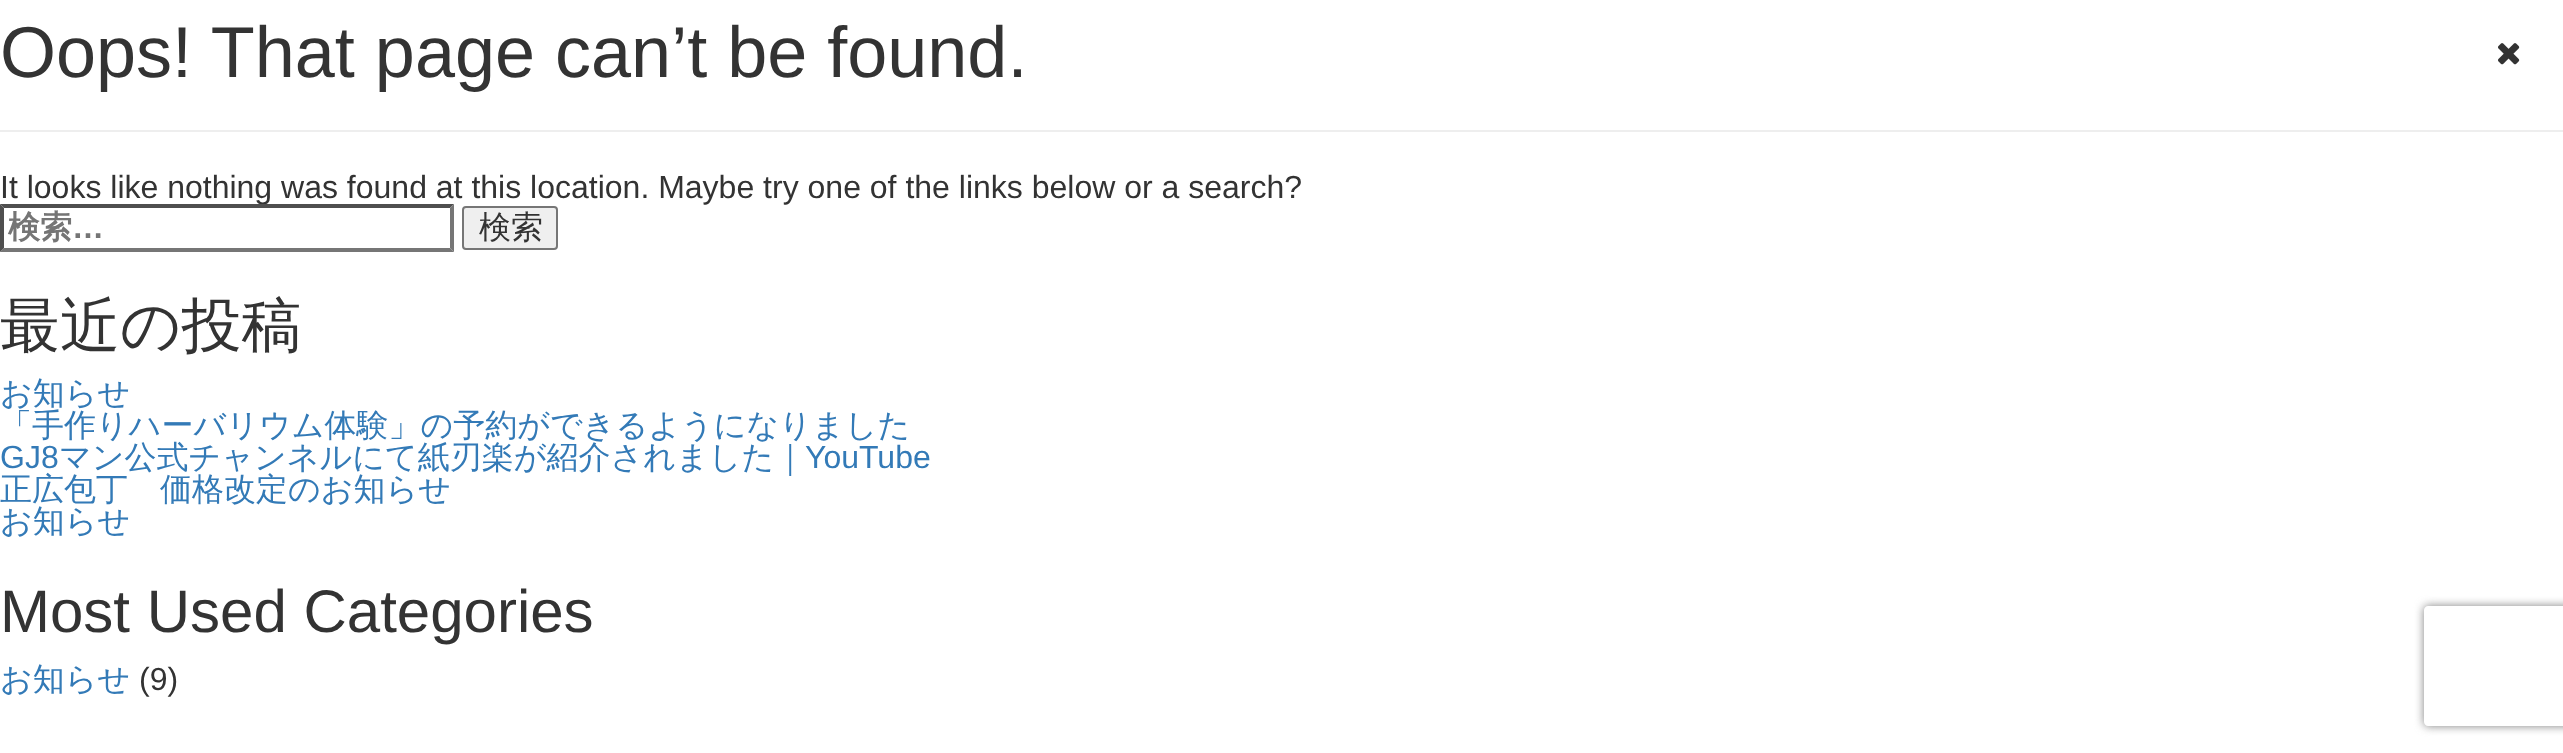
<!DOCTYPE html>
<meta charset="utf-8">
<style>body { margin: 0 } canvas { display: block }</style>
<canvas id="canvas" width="2563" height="753"></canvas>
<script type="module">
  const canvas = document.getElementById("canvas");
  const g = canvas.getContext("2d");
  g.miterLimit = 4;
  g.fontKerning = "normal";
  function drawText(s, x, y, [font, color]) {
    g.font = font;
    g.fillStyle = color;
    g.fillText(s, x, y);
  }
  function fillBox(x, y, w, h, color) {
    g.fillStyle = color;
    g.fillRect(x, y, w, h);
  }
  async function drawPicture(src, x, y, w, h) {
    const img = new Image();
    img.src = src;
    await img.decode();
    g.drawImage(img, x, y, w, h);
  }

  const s1 = ["72px Liberation Sans", "#333333"];
  const s2 = ["32px Liberation Sans", "#333333"];
  const s3 = ["bold 32px WenQuanYi Zen Hei", "#757575"];
  const s4 = ["bold 32px Liberation Sans", "#757575"];
  const s5 = ["500 32px WenQuanYi Zen Hei", "#333333"];
  const s6 = ["500 60px WenQuanYi Zen Hei", "#333333"];
  const s7 = ["500 32px WenQuanYi Zen Hei", "#337AB7"];
  const s8 = ["32px Liberation Sans", "#337AB7"];
  const s9 = ["60px Liberation Sans", "#333333"];

  fillBox(0, 0, 2563, 753, "#FFFFFF");
  fillBox(0, 130, 2563, 2, "#EEEEEE");
  drawText("Oops! That page can’t be found.", 0, 77, s1);
  drawText("It looks like nothing was found at this location. Maybe try one of the links below or a search?", 0, 198, s2);
  fillBox(259, 204, 8, 1, "#FFFFFF");
  g.fillStyle = "#4F4F4F";
  g.beginPath();
  g.moveTo(0, 204);
  g.lineTo(454, 204);
  g.lineTo(450, 208);
  g.lineTo(4, 208);
  g.closePath();
  g.fill();
  g.fillStyle = "#767676";
  g.beginPath();
  g.moveTo(454, 204);
  g.lineTo(454, 252);
  g.lineTo(450, 248);
  g.lineTo(450, 208);
  g.closePath();
  g.fill();
  g.beginPath();
  g.moveTo(454, 252);
  g.lineTo(0, 252);
  g.lineTo(4, 248);
  g.lineTo(450, 248);
  g.closePath();
  g.fill();
  g.fillStyle = "#4F4F4F";
  g.beginPath();
  g.moveTo(0, 252);
  g.lineTo(0, 204);
  g.lineTo(4, 208);
  g.lineTo(4, 248);
  g.closePath();
  g.fill();
  drawText("検索", 8, 238, s3);
  drawText("…", 72, 238, s4);
  g.fillStyle = "#EFEFEF";
  g.beginPath();
  g.roundRect(463, 207, 94, 42, 3);
  g.fill();
  g.strokeStyle = "#767676";
  g.lineWidth = 2;
  g.stroke();
  drawText("検索", 479, 238, s5);
  drawText("最近の投稿", 0, 346, s6);
  drawText("お知らせ", 0, 404, s7);
  drawText("「手作りハーバリウム体験」の予約ができるようになりました", 0, 436, s7);
  drawText("GJ8", 0, 468, s8);
  drawText("マン公式チャンネルにて紙刃楽が紹介されました｜", 59, 468, s7);
  drawText("YouTube", 805, 468, s8);
  drawText("正広包丁　価格改定のお知らせ", 0, 500, s7);
  drawText("お知らせ", 0, 532, s7);
  drawText("Most Used Categories", 0, 632, s9);
  drawText("お知らせ", 0, 690, s7);
  drawText("(9)", 139, 690, s2);
  await drawPicture("pic1.png", 2498, 43, 22, 22);
  g.save();
  g.beginPath();
  g.moveTo(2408, 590);
  g.lineTo(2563, 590);
  g.lineTo(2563, 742);
  g.lineTo(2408, 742);
  g.closePath();
  g.moveTo(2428, 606);
  g.lineTo(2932, 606);
  g.bezierCurveTo(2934, 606, 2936, 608, 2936, 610);
  g.lineTo(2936, 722);
  g.bezierCurveTo(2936, 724, 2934, 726, 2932, 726);
  g.lineTo(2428, 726);
  g.bezierCurveTo(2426, 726, 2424, 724, 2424, 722);
  g.lineTo(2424, 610);
  g.bezierCurveTo(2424, 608, 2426, 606, 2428, 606);
  g.closePath();
  g.clip("evenodd");
  g.fillStyle = "#808080";
  g.filter = "blur(5px)";
  g.beginPath();
  g.roundRect(2424, 606, 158, 120, 4);
  g.fill();
  g.filter = "none";
  g.restore();
</script>
